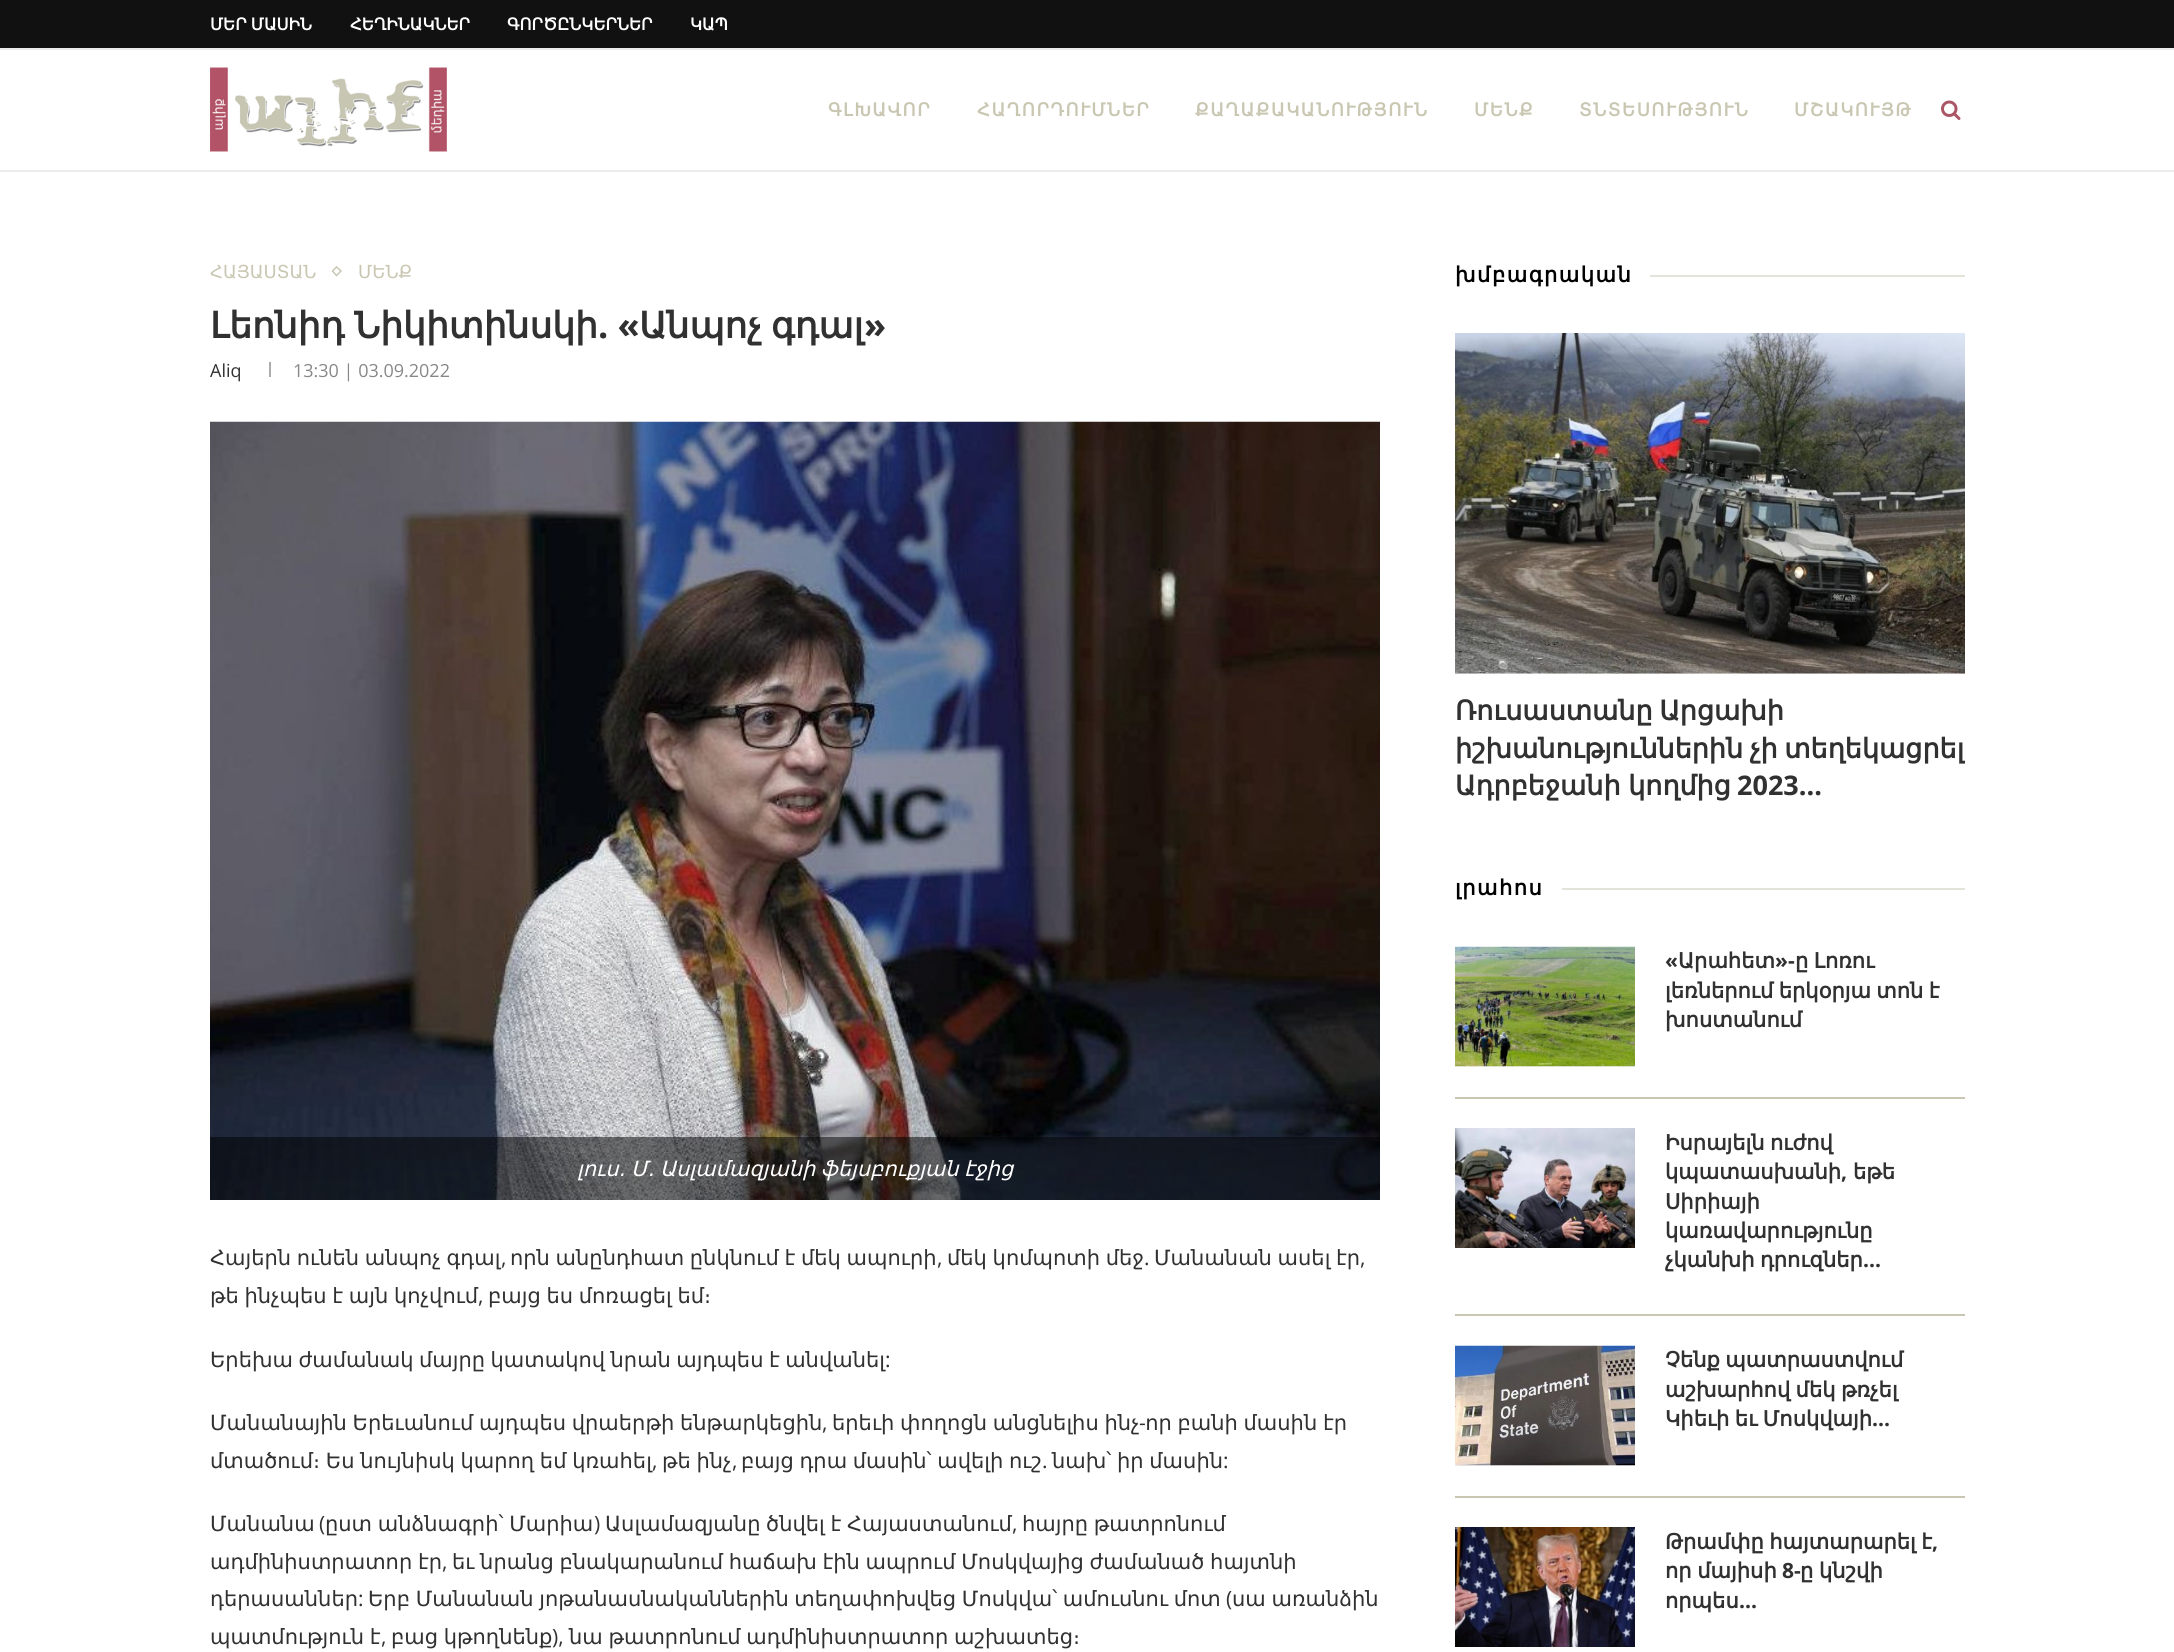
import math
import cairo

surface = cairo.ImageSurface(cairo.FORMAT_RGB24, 2174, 1652)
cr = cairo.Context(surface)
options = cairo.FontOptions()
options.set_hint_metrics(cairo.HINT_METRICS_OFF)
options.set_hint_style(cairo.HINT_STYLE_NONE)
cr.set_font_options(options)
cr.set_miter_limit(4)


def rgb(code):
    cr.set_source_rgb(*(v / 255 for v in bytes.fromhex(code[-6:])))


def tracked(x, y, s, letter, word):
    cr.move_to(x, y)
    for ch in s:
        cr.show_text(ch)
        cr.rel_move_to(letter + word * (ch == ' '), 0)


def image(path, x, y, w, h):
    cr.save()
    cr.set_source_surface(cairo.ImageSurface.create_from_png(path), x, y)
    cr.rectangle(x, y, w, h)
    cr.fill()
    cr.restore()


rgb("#ffffff")
cr.paint()
for x, y, w, h, color in [
    (0, 0, 2174, 48, "#111111"),
    (0, 48, 2174, 2, "#ececec"),
    (0, 170, 2174, 2, "#ececec"),
]:
    rgb(color)
    cr.rectangle(x, y, w, h)
    cr.fill()
image("img/1.png", 210, 67, 237, 85)
image("img/2.png", 1941, 100, 20, 20)
cr.new_path()
cr.move_to(336.5, 267)
cr.line_to(341, 271)
cr.line_to(336.5, 275.5)
cr.line_to(332.5, 271)
cr.close_path()
rgb("#c9c7b2")
cr.set_line_width(1.5)
cr.stroke()
rgb("#acacac")
cr.rectangle(269, 362, 2, 15)
cr.fill()
image("img/3.png", 210, 421, 1170, 779)
cr.set_source_rgba(0, 0, 0, 0.5)
cr.rectangle(210, 1137, 1170, 63)
cr.fill()
rgb("#e4e3d9")
cr.rectangle(1650, 275, 315, 2)
cr.fill()
rgb("#f5f5f5")
cr.rectangle(1455, 673, 510, 1)
cr.fill()
image("img/4.png", 1455, 333, 510, 341)
for x, y, w, h, color in [
    (1562, 888, 403, 2, "#e4e3d9"),
    (1455, 1097, 510, 2, "#c9c7b2"),
    (1455, 1066, 180, 1, "#f5f5f5"),
]:
    rgb(color)
    cr.rectangle(x, y, w, h)
    cr.fill()
image("img/5.png", 1455, 946, 180, 121)
rgb("#c9c7b2")
cr.rectangle(1455, 1314, 510, 2)
cr.fill()
image("img/6.png", 1455, 1128, 180, 120)
cr.rectangle(1455, 1496, 510, 2)
cr.fill()
rgb("#f5f5f5")
cr.rectangle(1455, 1465, 180, 1)
cr.fill()
image("img/7.png", 1455, 1345, 180, 121)
image("img/8.png", 1455, 1527, 180, 120)
cr.select_font_face("DejaVu Sans", cairo.FONT_SLANT_NORMAL, cairo.FONT_WEIGHT_BOLD)
cr.set_font_size(16.5)
rgb("#ffffff")
tracked(210, 30, "ՄԵՐ ՄԱՍԻՆ", 0, -1)
for x, y, s in [
    (350, 30, "ՀԵՂԻՆԱԿՆԵՐ"),
    (507, 30, "ԳՈՐԾԸՆԿԵՐՆԵՐ"),
    (690, 30, "ԿԱՊ"),
]:
    cr.move_to(x, y)
    cr.show_text(s)
cr.set_font_size(18)
rgb("#c9c7b2")
for x, y, s in [
    (828, 116, "ԳԼԽԱՎՈՐ"),
    (977, 116, "ՀԱՂՈՐԴՈՒՄՆԵՐ"),
    (1195, 116, "ՔԱՂԱՔԱԿԱՆՈՒԹՅՈՒՆ"),
    (1474, 116, "ՄԵՆՔ"),
    (1579, 116, "ՏՆՏԵՍՈՒԹՅՈՒՆ"),
    (1794, 116, "ՄՇԱԿՈՒՅԹ"),
]:
    tracked(x, y, s, 1.5, 0)
cr.select_font_face("DejaVu Sans")
cr.move_to(210, 278)
cr.show_text("ՀԱՅԱՍՏԱՆ")
cr.move_to(358, 278)
cr.show_text("ՄԵՆՔ")
cr.select_font_face("DejaVu Sans", cairo.FONT_SLANT_NORMAL, cairo.FONT_WEIGHT_BOLD)
cr.set_font_size(36)
rgb("#313131")
cr.move_to(210, 338)
cr.show_text("Լեոնիդ")
cr.move_to(354, 338)
cr.show_text("Նիկիտինսկի")
cr.select_font_face("Open Sans", cairo.FONT_SLANT_NORMAL, cairo.FONT_WEIGHT_BOLD)
cr.move_to(598, 338)
cr.show_text(". «")
cr.select_font_face("DejaVu Sans", cairo.FONT_SLANT_NORMAL, cairo.FONT_WEIGHT_BOLD)
cr.move_to(639, 338)
cr.show_text("Անպոչ")
cr.move_to(771, 338)
cr.show_text("գդալ")
cr.select_font_face("Open Sans", cairo.FONT_SLANT_NORMAL, cairo.FONT_WEIGHT_BOLD)
cr.move_to(864, 338)
cr.show_text("»")
cr.select_font_face("Open Sans")
cr.set_font_size(18)
cr.move_to(210, 377)
cr.show_text("Aliq")
rgb("#888888")
cr.move_to(293, 377)
cr.show_text("13:30 | 03.09.2022")
cr.select_font_face("DejaVu Sans", cairo.FONT_SLANT_ITALIC)
cr.set_font_size(21)
rgb("#ffffff")
tracked(577, 1176, "լուս․ Մ․ Ասլամազյանի ֆեյսբուքյան էջից", 0, -1.25)
cr.select_font_face("DejaVu Sans")
rgb("#313131")
tracked(210, 1265, "Հայերն ունեն անպոչ գդալ", 0, -1)
cr.select_font_face("Open Sans")
cr.move_to(501, 1265)
cr.show_text(",")
cr.select_font_face("DejaVu Sans")
tracked(510, 1265, "որն անընդհատ ընկնում է մեկ ապուրի", 0, -1)
cr.select_font_face("Open Sans")
cr.move_to(937, 1265)
cr.show_text(",")
cr.select_font_face("DejaVu Sans")
tracked(947, 1265, "մեկ կոմպոտի մեջ", 0, -1)
cr.select_font_face("Open Sans")
cr.move_to(1144, 1265)
cr.show_text(".")
cr.select_font_face("DejaVu Sans")
tracked(1154, 1265, "Մանանան ասել էր", 0, -1)
cr.select_font_face("Open Sans")
cr.move_to(1360, 1265)
cr.show_text(",")
cr.select_font_face("DejaVu Sans")
tracked(210, 1303, "թե ինչպես է այն կոչվում", 0, -1)
cr.select_font_face("Open Sans")
cr.move_to(478, 1303)
cr.show_text(",")
cr.select_font_face("DejaVu Sans")
tracked(488, 1303, "բայց ես մոռացել եմ։", 0, -1)
tracked(210, 1367, "Երեխա ժամանակ մայրը կատակով նրան այդպես է անվանել", 0, -1.25)
cr.select_font_face("Open Sans")
cr.move_to(885, 1367)
cr.show_text(":")
cr.select_font_face("DejaVu Sans")
tracked(210, 1430, "Մանանային Երեւանում այդպես վրաերթի ենթարկեցին", 0, -1)
tracked(832, 1430, "երեւի փողոցն անցնելիս ինչ որ բանի մասին էր", 0, -1)
cr.select_font_face("Open Sans")
cr.move_to(1139, 1430)
cr.show_text("-")
cr.move_to(822, 1430)
cr.show_text(",")
cr.select_font_face("DejaVu Sans")
tracked(210, 1468, "մտածում։ Ես նույնիսկ կարող եմ կռահել", 0, -1)
cr.select_font_face("Open Sans")
cr.move_to(652, 1468)
cr.show_text(",")
cr.select_font_face("DejaVu Sans")
tracked(662, 1468, "թե ինչ", 0, -1)
cr.select_font_face("Open Sans")
cr.move_to(732, 1468)
cr.show_text(",")
cr.select_font_face("DejaVu Sans")
tracked(741, 1468, "բայց դրա մասին՝ ավելի ուշ", 0, -1)
cr.select_font_face("Open Sans")
cr.move_to(1042, 1468)
cr.show_text(".")
cr.select_font_face("DejaVu Sans")
tracked(1052, 1468, "նախ՝ իր մասին", 0, -1)
cr.select_font_face("Open Sans")
cr.move_to(1223, 1468)
cr.show_text(":")
cr.select_font_face("DejaVu Sans")
cr.move_to(210, 1531)
cr.show_text("Մանանա")
cr.select_font_face("Open Sans")
cr.move_to(319, 1531)
cr.show_text("(")
cr.select_font_face("DejaVu Sans")
tracked(325, 1531, "ըստ անձնագրի՝ Մարիա", 0, -1)
cr.select_font_face("Open Sans")
cr.move_to(594, 1531)
cr.show_text(")")
cr.select_font_face("DejaVu Sans")
tracked(605, 1531, "Ասլամազյանը ծնվել է Հայաստանում", 0, -1)
cr.select_font_face("Open Sans")
cr.move_to(1012, 1531)
cr.show_text(",")
cr.select_font_face("DejaVu Sans")
tracked(1022, 1531, "հայրը թատրոնում", 0, -1)
tracked(210, 1569, "ադմինիստրատոր էր", 0, -1)
cr.select_font_face("Open Sans")
cr.move_to(442, 1569)
cr.show_text(",")
cr.select_font_face("DejaVu Sans")
tracked(452, 1569, "եւ նրանց բնակարանում հաճախ էին ապրում Մոսկվայից ժամանած հայտնի", 0, -1)
cr.move_to(210, 1606)
cr.show_text("դերասաններ")
cr.select_font_face("Open Sans")
cr.move_to(358, 1606)
cr.show_text(":")
cr.select_font_face("DejaVu Sans")
tracked(368, 1606, "Երբ Մանանան յոթանասնականներին տեղափոխվեց Մոսկվա՝ ամուսնու մոտ", 0, -1)
cr.select_font_face("Open Sans")
cr.move_to(1226, 1606)
cr.show_text("(")
cr.select_font_face("DejaVu Sans")
tracked(1232, 1606, "սա առանձին", 0, -1)
tracked(210, 1644, "պատմություն է", 0, -1)
cr.select_font_face("Open Sans")
cr.move_to(381, 1644)
cr.show_text(",")
cr.select_font_face("DejaVu Sans")
tracked(391, 1644, "բաց կթողնենք", 0, -1)
cr.select_font_face("Open Sans")
cr.move_to(552, 1644)
cr.show_text("),")
cr.select_font_face("DejaVu Sans")
tracked(569, 1644, "նա թատրոնում ադմինիստրատոր աշխատեց։", 0, -1)
cr.select_font_face("DejaVu Sans", cairo.FONT_SLANT_NORMAL, cairo.FONT_WEIGHT_BOLD)
rgb("#000000")
tracked(1455, 282, "խմբագրական", 1.5, 0)
cr.set_font_size(27)
rgb("#313131")
tracked(1455, 720, "Ռուսաստանը Արցախի", 0, -2)
cr.save()
cr.rectangle(1455, 692, 510, 121)
cr.clip()
tracked(1455, 758, "իշխանություններին չի տեղեկացրել", 0, -2)
cr.restore()
tracked(1455, 795, "Ադրբեջանի կողմից", 0, -1)
cr.select_font_face("Open Sans", cairo.FONT_SLANT_NORMAL, cairo.FONT_WEIGHT_BOLD)
cr.move_to(1737, 795)
cr.show_text("2023...")
cr.select_font_face("DejaVu Sans", cairo.FONT_SLANT_NORMAL, cairo.FONT_WEIGHT_BOLD)
cr.set_font_size(21)
rgb("#000000")
tracked(1455, 895, "լրահոս", 1.5, 0)
cr.select_font_face("Open Sans", cairo.FONT_SLANT_NORMAL, cairo.FONT_WEIGHT_BOLD)
rgb("#313131")
cr.move_to(1665, 968)
cr.show_text("«")
cr.select_font_face("DejaVu Sans", cairo.FONT_SLANT_NORMAL, cairo.FONT_WEIGHT_BOLD)
cr.move_to(1678, 968)
cr.show_text("Արահետ")
cr.select_font_face("Open Sans", cairo.FONT_SLANT_NORMAL, cairo.FONT_WEIGHT_BOLD)
cr.move_to(1775, 968)
cr.show_text("»-")
cr.select_font_face("DejaVu Sans", cairo.FONT_SLANT_NORMAL, cairo.FONT_WEIGHT_BOLD)
tracked(1795, 968, "ը Լոռու", 0, -1.25)
tracked(1665, 998, "լեռներում երկօրյա տոն է", 0, -1.25)
cr.move_to(1665, 1027)
cr.show_text("խոստանում")
tracked(1665, 1150, "Իսրայելն ուժով", 0, -1.25)
cr.move_to(1665, 1179)
cr.show_text("կպատասխանի")
cr.select_font_face("Open Sans", cairo.FONT_SLANT_NORMAL, cairo.FONT_WEIGHT_BOLD)
cr.move_to(1841, 1179)
cr.show_text(",")
cr.select_font_face("DejaVu Sans", cairo.FONT_SLANT_NORMAL, cairo.FONT_WEIGHT_BOLD)
for x, y, s in [
    (1853, 1179, "եթե"),
    (1665, 1209, "Սիրիայի"),
    (1665, 1238, "կառավարությունը"),
]:
    cr.move_to(x, y)
    cr.show_text(s)
tracked(1665, 1267, "չկանխի դրուզներ", 0, -1.25)
cr.select_font_face("Open Sans", cairo.FONT_SLANT_NORMAL, cairo.FONT_WEIGHT_BOLD)
cr.move_to(1863, 1267)
cr.show_text("...")
cr.select_font_face("DejaVu Sans", cairo.FONT_SLANT_NORMAL, cairo.FONT_WEIGHT_BOLD)
for x, y, s in [
    (1665, 1367, "Չենք պատրաստվում"),
    (1665, 1397, "աշխարհով մեկ թռչել"),
    (1665, 1426, "Կիեւի եւ Մոսկվայի"),
]:
    tracked(x, y, s, 0, -1.25)
cr.select_font_face("Open Sans", cairo.FONT_SLANT_NORMAL, cairo.FONT_WEIGHT_BOLD)
cr.move_to(1872, 1426)
cr.show_text("...")
cr.select_font_face("DejaVu Sans", cairo.FONT_SLANT_NORMAL, cairo.FONT_WEIGHT_BOLD)
tracked(1665, 1549, "Թրամփը հայտարարել է", 0, -1.25)
cr.select_font_face("Open Sans", cairo.FONT_SLANT_NORMAL, cairo.FONT_WEIGHT_BOLD)
cr.move_to(1932, 1549)
cr.show_text(",")
cr.select_font_face("DejaVu Sans", cairo.FONT_SLANT_NORMAL, cairo.FONT_WEIGHT_BOLD)
tracked(1665, 1578, "որ մայիսի", 0, -1)
cr.select_font_face("Open Sans", cairo.FONT_SLANT_NORMAL, cairo.FONT_WEIGHT_BOLD)
cr.move_to(1782, 1578)
cr.show_text("8-")
cr.select_font_face("DejaVu Sans", cairo.FONT_SLANT_NORMAL, cairo.FONT_WEIGHT_BOLD)
tracked(1800, 1578, "ը կնշվի", 0, -1)
cr.move_to(1665, 1608)
cr.show_text("որպես")
cr.select_font_face("Open Sans", cairo.FONT_SLANT_NORMAL, cairo.FONT_WEIGHT_BOLD)
cr.move_to(1739, 1608)
cr.show_text("...")
surface.write_to_png("page.png")
